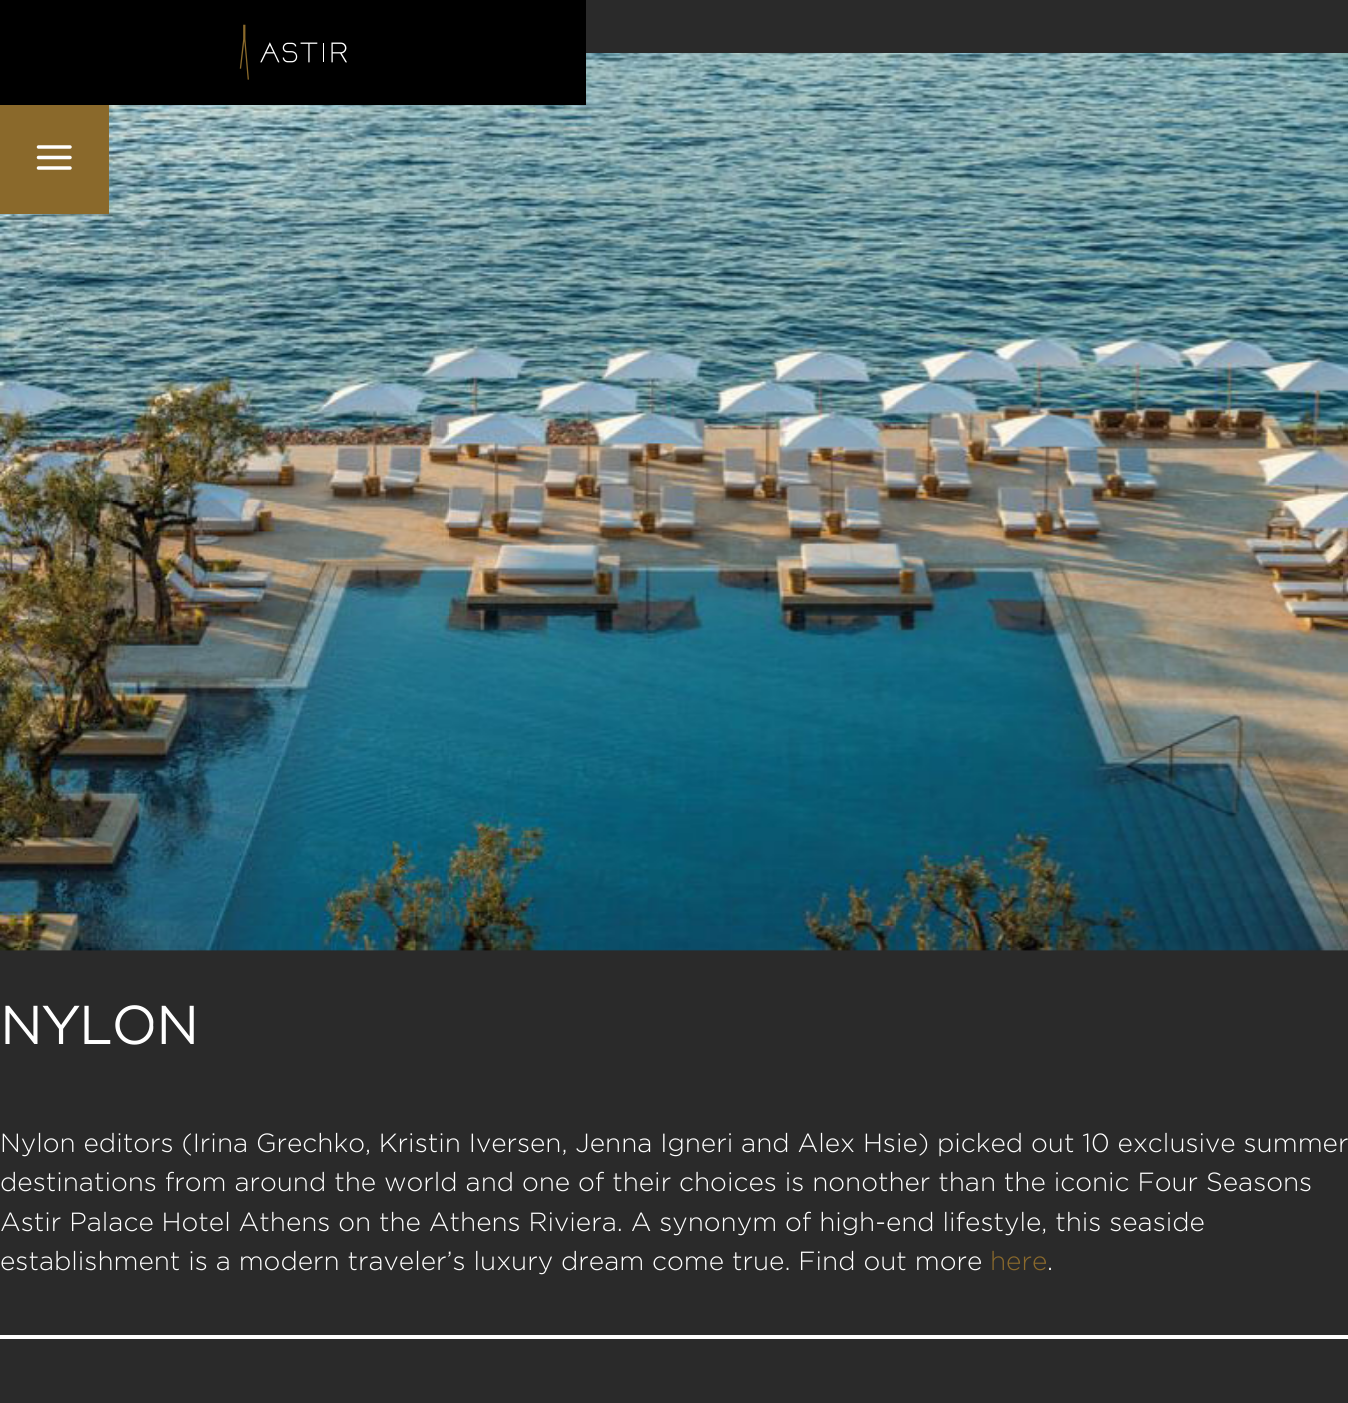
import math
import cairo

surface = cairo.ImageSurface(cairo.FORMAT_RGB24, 1348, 1403)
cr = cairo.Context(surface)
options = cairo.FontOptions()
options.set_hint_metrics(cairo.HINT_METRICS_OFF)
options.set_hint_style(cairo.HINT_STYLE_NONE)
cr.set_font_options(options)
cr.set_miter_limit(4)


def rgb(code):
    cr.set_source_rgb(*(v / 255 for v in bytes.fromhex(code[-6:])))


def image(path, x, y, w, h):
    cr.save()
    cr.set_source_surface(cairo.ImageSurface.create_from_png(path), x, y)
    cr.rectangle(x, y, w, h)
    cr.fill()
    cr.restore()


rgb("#2a2a2a")
cr.paint()
image("img/3.png", 0, 53, 1348, 898)
rgb("#000000")
cr.rectangle(0, 0, 586, 105)
cr.fill()
image("img/1.png", 239, 24, 108, 56)
rgb("#8a692b")
cr.rectangle(0, 105, 109, 109)
cr.fill()
image("img/2.png", 36, 145, 36, 25)
rgb("#ffffff")
cr.rectangle(0, 1335, 1348, 4)
cr.fill()
cr.select_font_face("Gotham", cairo.FONT_SLANT_NORMAL, cairo.FONT_WEIGHT_BOLD)
cr.set_font_size(52.5)
cr.move_to(0, 1044)
cr.show_text("NYLON")
cr.select_font_face("Gotham Light")
cr.set_font_size(26.25)
for x, y, s in [
    (0, 1152, "Nylon editors (Irina Grechko, Kristin Iversen, Jenna Igneri and Alex Hsie) picked out 10 exclusive summer"),
    (0, 1191, "destinations from around the world and one of their choices is nonother than the iconic Four Seasons"),
    (0, 1231, "Astir Palace Hotel Athens on the Athens Riviera. A synonym of high-end lifestyle, this seaside"),
    (0, 1270, "establishment is a modern traveler’s luxury dream come true. Find out more"),
]:
    cr.move_to(x, y)
    cr.show_text(s)
rgb("#8a692b")
cr.move_to(990, 1270)
cr.show_text("here")
rgb("#ffffff")
cr.move_to(1047, 1270)
cr.show_text(".")
surface.write_to_png("page.png")
